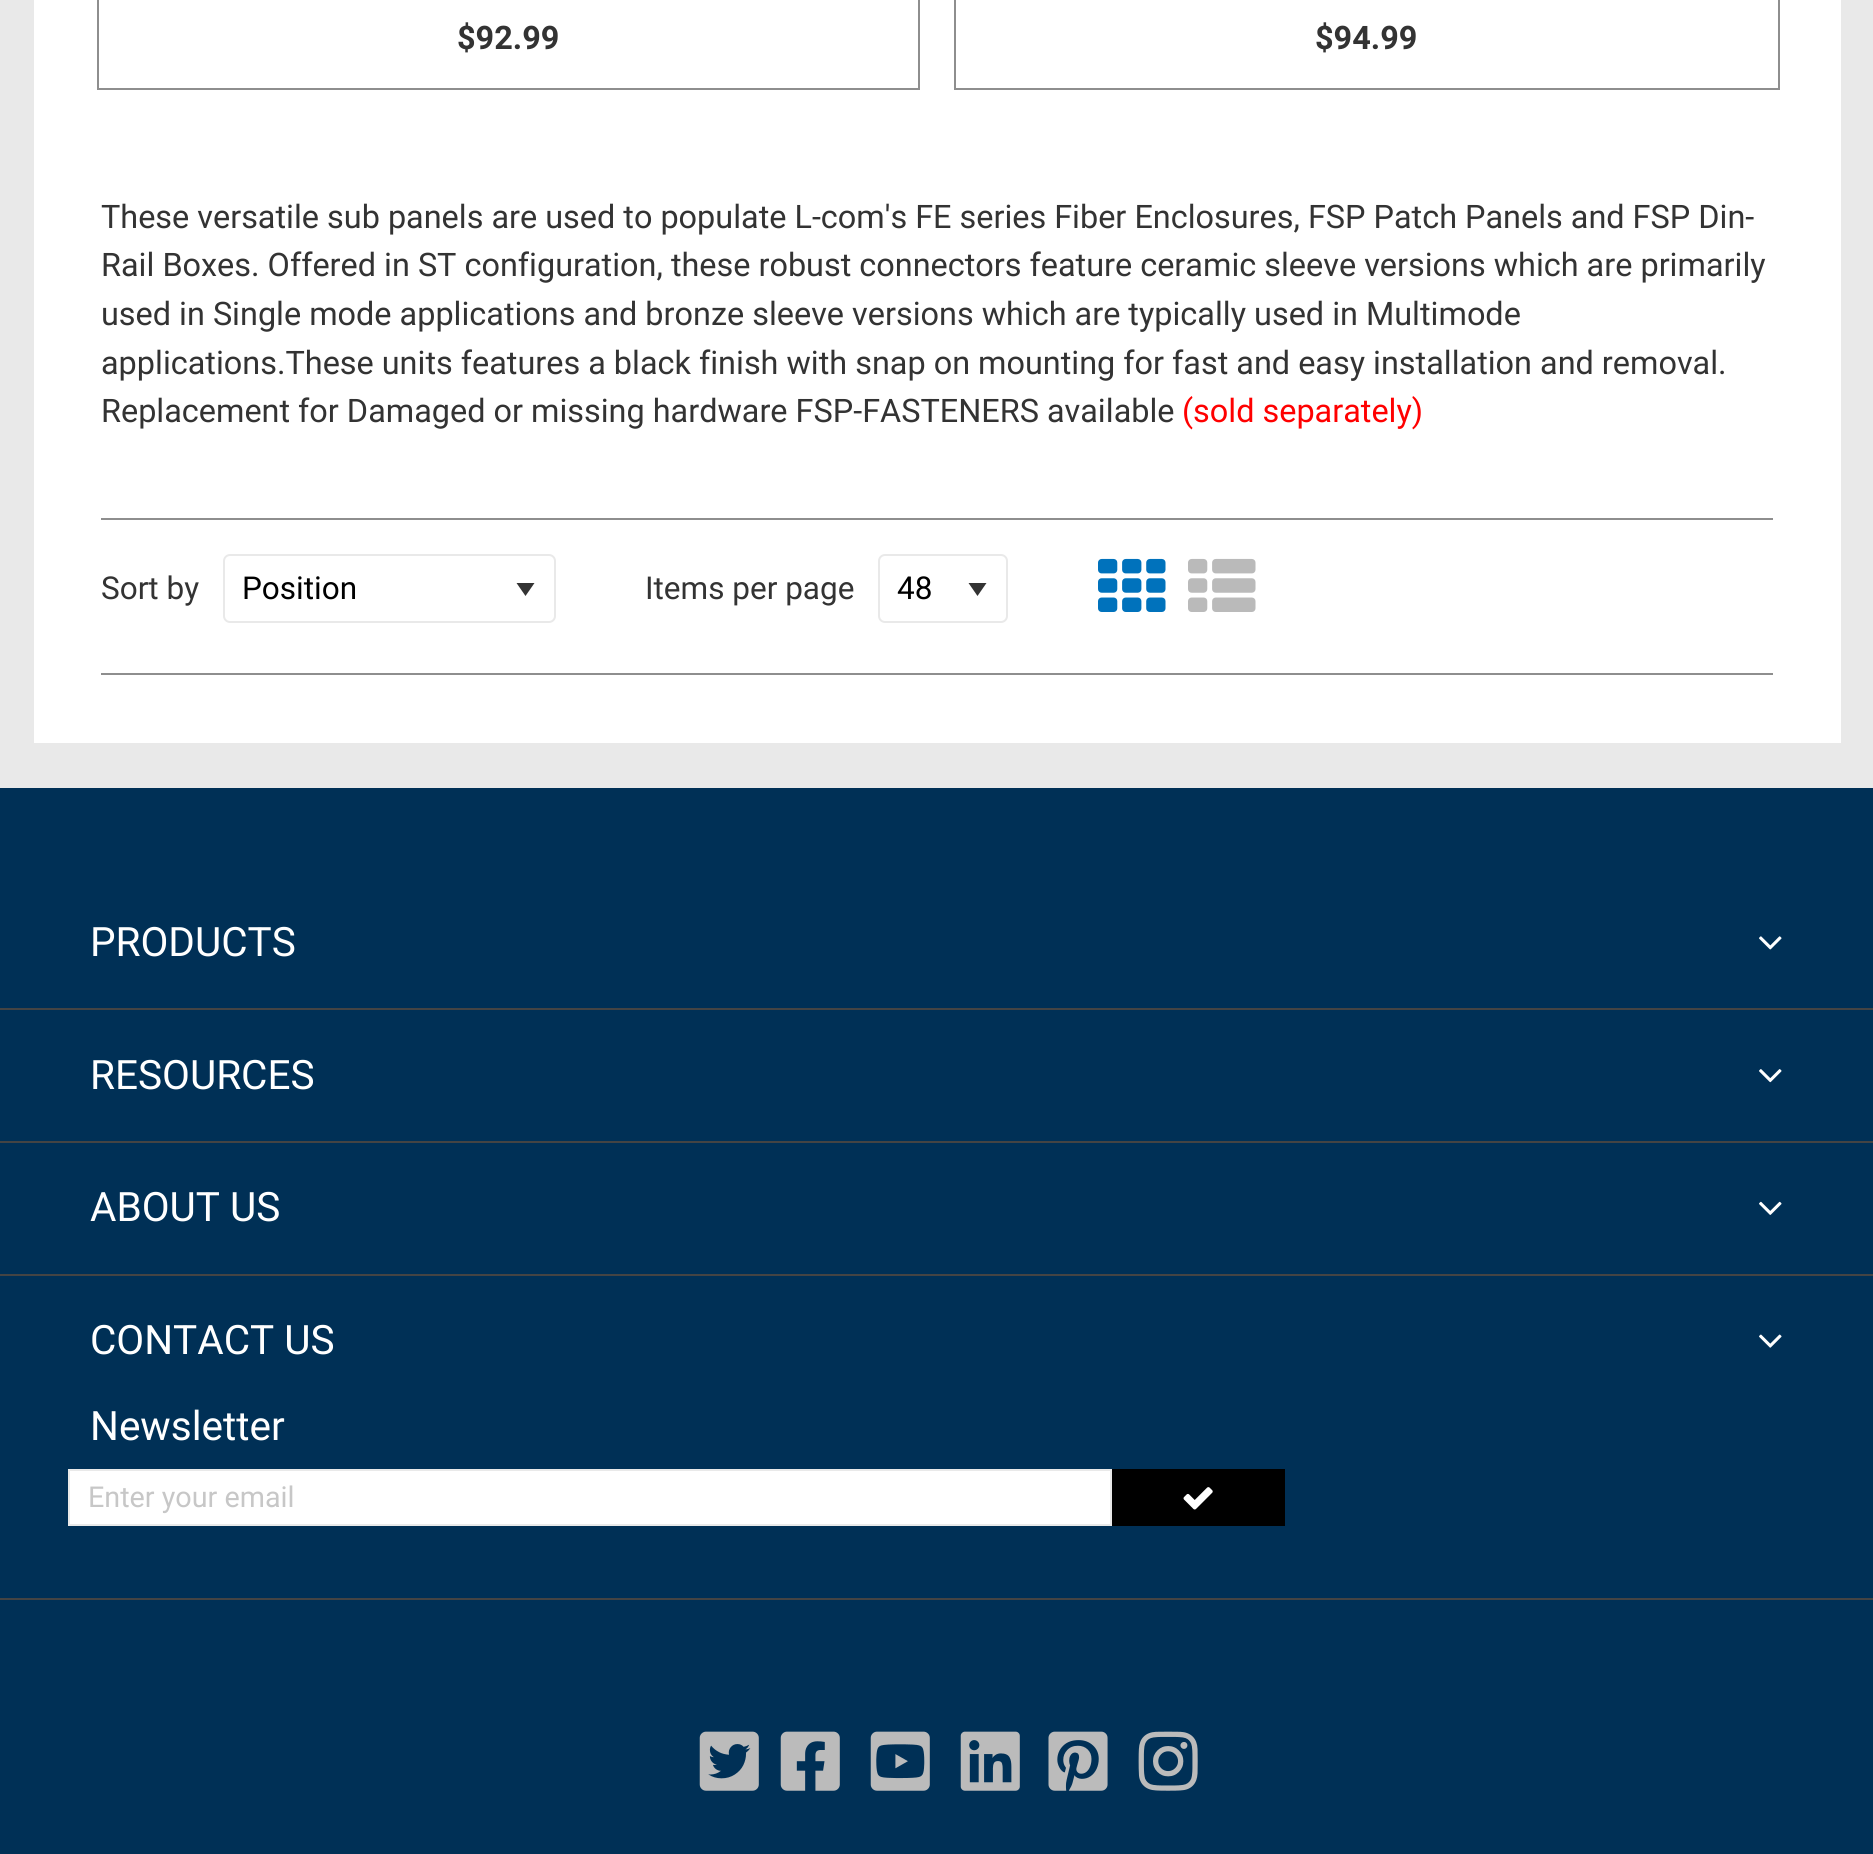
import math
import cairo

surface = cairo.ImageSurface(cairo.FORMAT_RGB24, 1873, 1854)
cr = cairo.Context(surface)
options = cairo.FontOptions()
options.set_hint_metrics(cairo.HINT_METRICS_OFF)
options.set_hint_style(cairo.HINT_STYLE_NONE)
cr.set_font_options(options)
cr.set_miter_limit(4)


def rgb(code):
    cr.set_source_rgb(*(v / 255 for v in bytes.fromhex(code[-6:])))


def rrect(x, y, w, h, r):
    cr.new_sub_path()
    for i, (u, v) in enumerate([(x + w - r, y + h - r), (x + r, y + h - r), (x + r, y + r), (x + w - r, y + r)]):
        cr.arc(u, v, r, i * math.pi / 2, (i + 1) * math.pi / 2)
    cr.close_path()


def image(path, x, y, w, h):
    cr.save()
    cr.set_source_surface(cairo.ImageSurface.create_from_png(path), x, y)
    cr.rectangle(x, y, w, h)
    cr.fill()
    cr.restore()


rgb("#e9e9e9")
cr.paint()
rgb("#ffffff")
cr.rectangle(34, 0, 1807, 743)
cr.fill()
cr.rectangle(98, -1, 821, 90)
rgb("#8e8e8e")
cr.stroke()
cr.rectangle(955, -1, 824, 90)
cr.stroke()
cr.rectangle(101, 518, 1672, 2)
cr.fill()
cr.rectangle(101, 673, 1672, 2)
cr.fill()
rgb("#333333")
cr.new_path()
cr.move_to(516.5, 583)
cr.line_to(534.5, 583)
cr.line_to(525.5, 596)
cr.close_path()
cr.fill()
rrect(224, 555, 331, 67, 6)
rgb("#e9e9e9")
cr.stroke()
rgb("#333333")
cr.new_path()
cr.move_to(968.5, 583)
cr.line_to(986.5, 583)
cr.line_to(977.5, 596)
cr.close_path()
cr.fill()
rrect(879, 555, 128, 67, 6)
rgb("#e9e9e9")
cr.stroke()
image("img/1.png", 1098, 558, 68, 54)
image("img/2.png", 1188, 558, 68, 54)
rgb("#003056")
cr.rectangle(0, 788, 1873, 1066)
cr.fill()
rgb("#444444")
cr.rectangle(0, 1008, 1873, 2)
cr.fill()
image("img/3.png", 1759, 936, 23, 14)
cr.rectangle(0, 1141, 1873, 2)
cr.fill()
image("img/4.png", 1759, 1069, 23, 14)
cr.rectangle(0, 1274, 1873, 2)
cr.fill()
image("img/5.png", 1759, 1201, 23, 14)
cr.rectangle(0, 1598, 1873, 2)
cr.fill()
image("img/6.png", 1759, 1334, 23, 14)
rgb("#ffffff")
cr.rectangle(69, 1470, 1042, 55)
cr.fill_preserve()
rgb("#e9e9e9")
cr.stroke()
rgb("#000000")
cr.rectangle(1112, 1469, 173, 57)
cr.fill()
image("img/7.png", 1183, 1487, 30, 23)
image("img/8.png", 699, 1731, 60, 60)
image("img/9.png", 780, 1731, 60, 60)
image("img/10.png", 870, 1731, 60, 60)
image("img/11.png", 960, 1731, 60, 60)
image("img/12.png", 1048, 1731, 60, 60)
image("img/13.png", 1138, 1731, 60, 60)
cr.select_font_face("Roboto", cairo.FONT_SLANT_NORMAL, cairo.FONT_WEIGHT_BOLD)
cr.set_font_size(32.4)
rgb("#333333")
cr.move_to(457, 49)
cr.show_text("$92.99")
cr.move_to(1315, 49)
cr.show_text("$94.99")
cr.select_font_face("Roboto")
for x, y, s in [
    (101, 228, "These versatile sub panels are used to populate L-com's FE series Fiber Enclosures, FSP Patch Panels and FSP Din-"),
    (101, 276, "Rail Boxes. Offered in ST configuration, these robust connectors feature ceramic sleeve versions which are primarily"),
    (101, 325, "used in Single mode applications and bronze sleeve versions which are typically used in Multimode"),
    (101, 374, "applications.These units features a black finish with snap on mounting for fast and easy installation and removal."),
    (101, 422, "Replacement for Damaged or missing hardware FSP-FASTENERS available"),
]:
    cr.move_to(x, y)
    cr.show_text(s)
rgb("#ff0000")
cr.move_to(1182, 422)
cr.show_text("(sold separately)")
cr.set_font_size(31.5)
rgb("#333333")
cr.move_to(101, 599)
cr.show_text("Sort by")
rgb("#000000")
cr.move_to(242, 599)
cr.show_text("Position")
rgb("#333333")
cr.move_to(645, 599)
cr.show_text("Items per page")
rgb("#000000")
cr.move_to(897, 599)
cr.show_text("48")
cr.set_font_size(40.5)
rgb("#ffffff")
for x, y, s in [
    (90, 956, "PRODUCTS"),
    (90, 1089, "RESOURCES"),
    (90, 1221, "ABOUT US"),
    (90, 1354, "CONTACT US"),
    (90, 1440, "Newsletter"),
]:
    cr.move_to(x, y)
    cr.show_text(s)
cr.set_font_size(28.75)
rgb("#c7c7c7")
cr.move_to(88, 1507)
cr.show_text("Enter your email")
surface.write_to_png("page.png")
